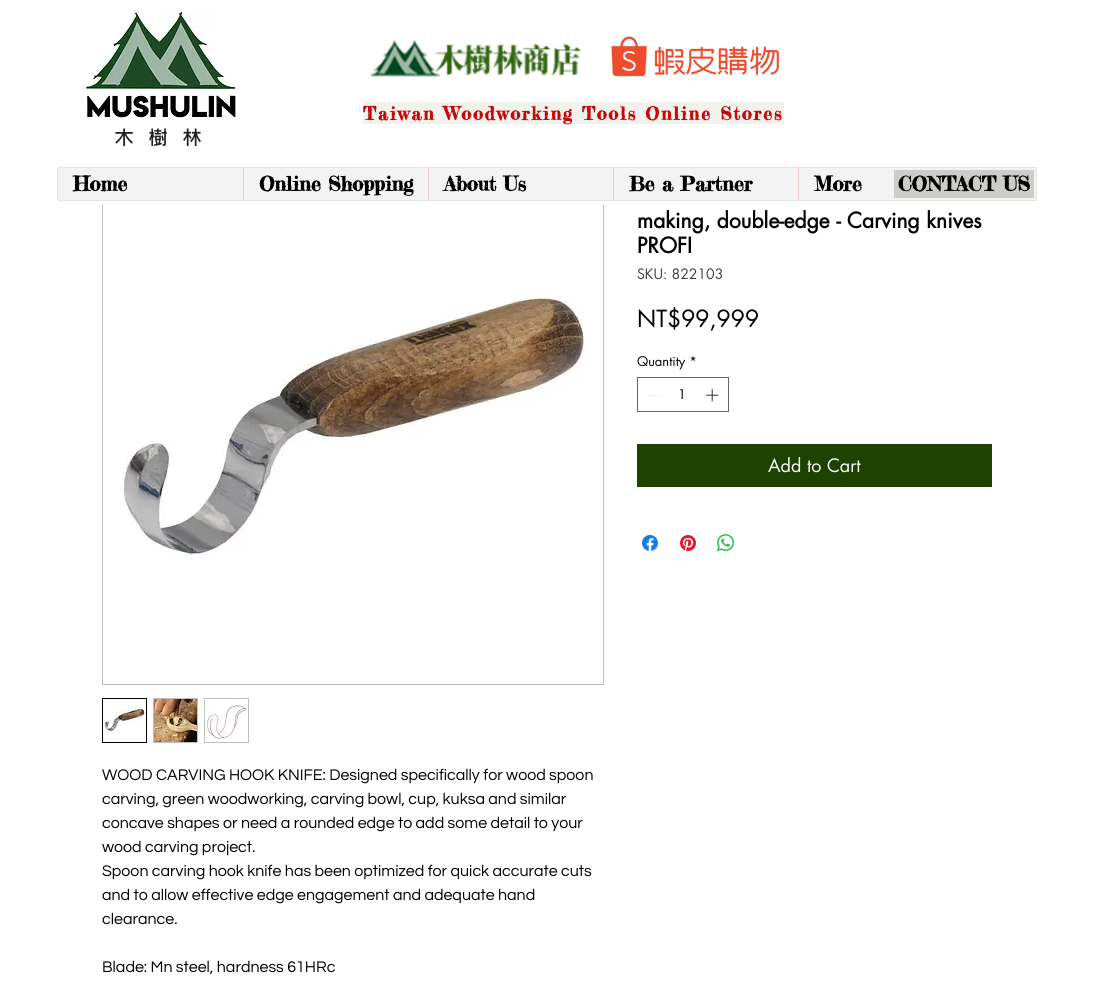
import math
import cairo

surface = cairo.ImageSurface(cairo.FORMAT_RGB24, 1093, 990)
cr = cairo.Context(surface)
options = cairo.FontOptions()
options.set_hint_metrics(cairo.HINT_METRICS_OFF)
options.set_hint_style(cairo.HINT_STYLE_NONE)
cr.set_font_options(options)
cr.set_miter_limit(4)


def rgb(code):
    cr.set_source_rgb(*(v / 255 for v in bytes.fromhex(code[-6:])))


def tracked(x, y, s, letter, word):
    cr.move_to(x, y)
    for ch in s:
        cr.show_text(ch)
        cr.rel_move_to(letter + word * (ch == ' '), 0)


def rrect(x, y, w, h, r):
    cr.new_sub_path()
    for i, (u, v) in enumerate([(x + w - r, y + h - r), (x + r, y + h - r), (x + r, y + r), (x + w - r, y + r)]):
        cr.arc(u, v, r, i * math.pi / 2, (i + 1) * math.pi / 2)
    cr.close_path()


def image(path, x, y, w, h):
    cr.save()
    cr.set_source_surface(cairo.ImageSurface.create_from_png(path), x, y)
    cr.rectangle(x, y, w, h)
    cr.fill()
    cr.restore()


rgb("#ffffff")
cr.paint()
image("img/1.png", 81, 10, 157, 81)
image("img/2.png", 84, 10, 153, 81)
image("img/3.png", 370, 40, 211, 37)
image("img/4.png", 611, 36, 168, 41)
image("img/5.png", 87, 94, 149, 24)
rgb("#f2f2ed")
cr.rectangle(363, 102, 421, 22)
cr.fill()
cr.rectangle(102.5, 183.5, 501, 501)
rgb("#bfbfbf")
cr.set_line_width(1)
cr.stroke()
rgb("#ffffff")
cr.rectangle(102, 183, 502, 22)
cr.fill()
rgb("#f3f3f3")
rrect(57.5, 167.5, 979, 33, 1.5)
cr.fill_preserve()
rgb("#e1e6de")
cr.stroke()
for x, y, w, h, color in [
    (243, 168, 1, 32, "#eccdcd"),
    (428, 168, 1, 32, "#eccdcd"),
    (613, 168, 1, 32, "#eccdcd"),
    (798, 168, 1, 32, "#eccdcd"),
]:
    rgb(color)
    cr.rectangle(x, y, w, h)
    cr.fill()
rgb("#cacdc8")
rrect(894, 170, 140, 28, 1)
cr.fill()
cr.rectangle(637.5, 377.5, 91, 34)
rgb("#666666")
cr.stroke()
rgb("#e3e3e3")
cr.set_fill_rule(cairo.FILL_RULE_EVEN_ODD)
cr.new_path()
cr.move_to(660, 395)
cr.line_to(660, 395.5)
cr.line_to(648, 395.5)
cr.line_to(648, 395)
cr.close_path()
cr.fill()
image("img/6.png", 706, 389, 13, 13)
rgb("#1d4202")
cr.rectangle(637, 444, 355, 43)
cr.fill()
image("img/7.png", 642, 535, 16, 16)
image("img/8.png", 680, 535, 16, 16)
image("img/9.png", 717, 534, 17, 17)
image("img/10.png", 123, 296, 463, 260)
cr.rectangle(102.5, 698.5, 44, 44)
rgb("#000000")
cr.stroke()
image("img/11.png", 103, 699, 43, 43)
rgb("#bfbfbf")
cr.rectangle(153, 698, 45, 45)
cr.fill()
image("img/12.png", 154, 699, 43, 43)
cr.rectangle(204, 698, 45, 45)
cr.fill()
image("img/13.png", 205, 699, 43, 43)
cr.select_font_face("Fredericka the Great", cairo.FONT_SLANT_NORMAL, cairo.FONT_WEIGHT_BOLD)
cr.set_font_size(18)
rgb("#c70808")
tracked(363, 120, "Taiwan Woodworking Tools Online Stores", 1.8, 0)
cr.select_font_face("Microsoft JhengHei", cairo.FONT_SLANT_NORMAL, cairo.FONT_WEIGHT_BOLD)
cr.set_font_size(20)
rgb("#212121")
tracked(114, 145, "木樹林", 14, 0)
cr.select_font_face("Fredericka the Great", cairo.FONT_SLANT_NORMAL, cairo.FONT_WEIGHT_BOLD)
rgb("#000000")
for x, y, s in [
    (73, 191, "Home"),
    (259, 191, "Online Shopping"),
    (444, 191, "About Us"),
    (629, 191, "Be a Partner"),
    (814, 191, "More"),
    (898, 191, "CONTACT US"),
]:
    cr.move_to(x, y)
    cr.show_text(s)
cr.select_font_face("futura", cairo.FONT_SLANT_NORMAL, cairo.FONT_WEIGHT_BOLD)
cr.set_font_size(21)
cr.move_to(637, 228)
cr.show_text("making, double-edge - Carving knives")
cr.move_to(637, 253)
cr.show_text("PROFI")
cr.select_font_face("futura")
cr.set_font_size(14)
rgb("#404040")
cr.move_to(637, 279)
cr.show_text("SKU: 822103")
cr.set_font_size(23)
rgb("#000000")
cr.move_to(637, 327)
cr.show_text("NT$99,999")
cr.set_font_size(13)
cr.move_to(637, 366)
cr.show_text("Quantity *")
cr.move_to(678, 399)
cr.show_text("1")
cr.set_font_size(18)
rgb("#ffffff")
cr.move_to(768, 472)
cr.show_text("Add to Cart")
cr.select_font_face("Questrial")
cr.set_font_size(16)
rgb("#000000")
for x, y, s in [
    (102, 780, "WOOD CARVING HOOK KNIFE: Designed specifically for wood spoon"),
    (102, 804, "carving, green woodworking, carving bowl, cup, kuksa and similar"),
    (102, 828, "concave shapes or need a rounded edge to add some detail to your"),
    (102, 852, "wood carving project."),
    (102, 876, "Spoon carving hook knife has been optimized for quick accurate cuts"),
    (102, 900, "and to allow effective edge engagement and adequate hand"),
    (102, 924, "clearance."),
    (102, 972, "Blade: Mn steel, hardness 61HRc"),
]:
    cr.move_to(x, y)
    cr.show_text(s)
surface.write_to_png("page.png")
